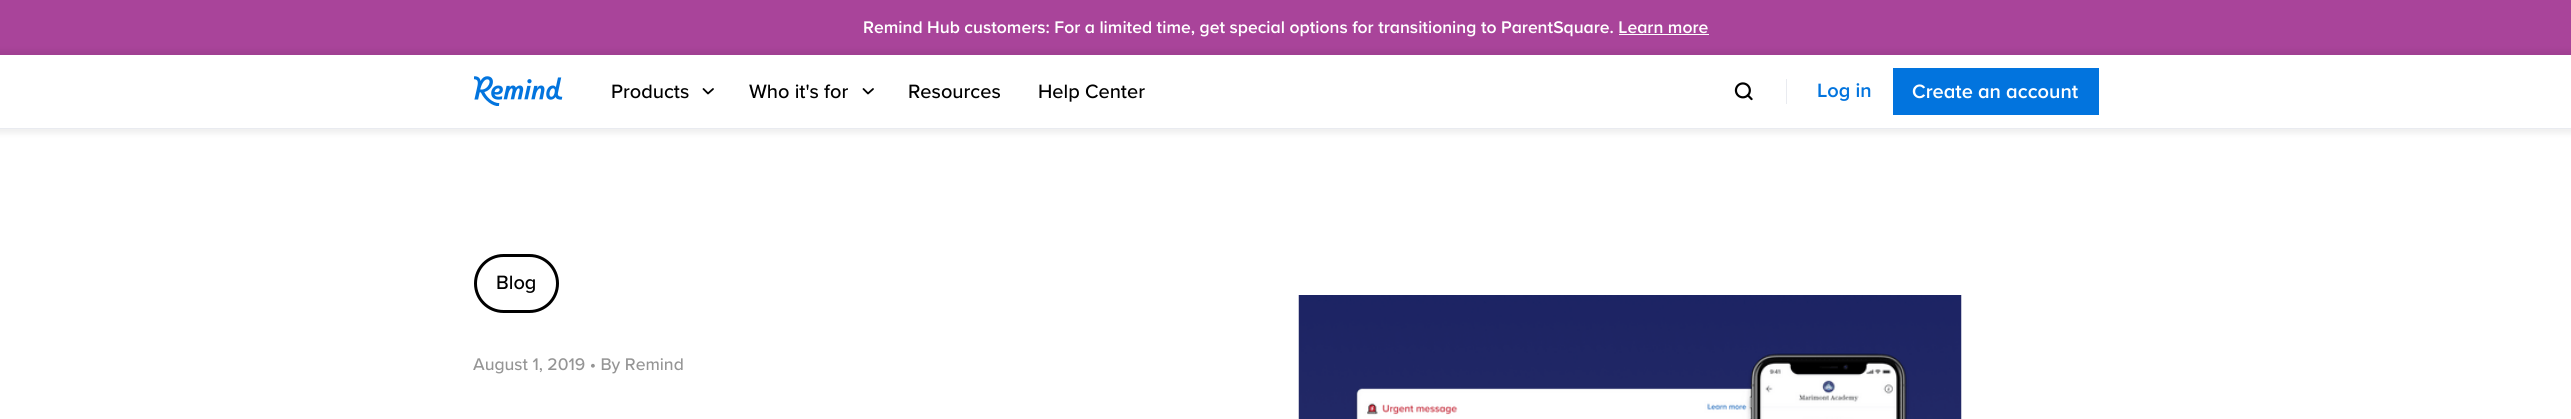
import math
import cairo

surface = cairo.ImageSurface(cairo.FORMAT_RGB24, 2571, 419)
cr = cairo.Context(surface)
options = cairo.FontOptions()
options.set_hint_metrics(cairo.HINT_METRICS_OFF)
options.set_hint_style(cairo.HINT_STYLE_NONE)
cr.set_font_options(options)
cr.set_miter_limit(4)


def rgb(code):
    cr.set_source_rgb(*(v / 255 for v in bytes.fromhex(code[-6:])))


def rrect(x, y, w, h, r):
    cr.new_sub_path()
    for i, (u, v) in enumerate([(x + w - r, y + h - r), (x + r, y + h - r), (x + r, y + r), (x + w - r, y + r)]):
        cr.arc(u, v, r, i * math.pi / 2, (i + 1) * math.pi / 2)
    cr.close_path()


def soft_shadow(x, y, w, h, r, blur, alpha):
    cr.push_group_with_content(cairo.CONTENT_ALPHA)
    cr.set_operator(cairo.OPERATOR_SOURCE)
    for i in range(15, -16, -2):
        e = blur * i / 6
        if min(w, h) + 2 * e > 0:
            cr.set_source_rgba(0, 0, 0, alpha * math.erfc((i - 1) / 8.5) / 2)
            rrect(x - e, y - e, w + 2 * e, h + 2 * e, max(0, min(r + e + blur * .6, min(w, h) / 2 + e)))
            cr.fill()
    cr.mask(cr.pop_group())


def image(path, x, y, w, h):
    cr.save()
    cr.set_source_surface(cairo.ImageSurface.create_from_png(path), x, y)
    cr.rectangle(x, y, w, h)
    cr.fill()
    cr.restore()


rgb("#a9449a")
cr.paint()
rgb("#ffffff")
cr.rectangle(1619, 34, 90, 1)
cr.fill()
cr.rectangle(0, 129, 2571, 290)
cr.fill()
rgb("#000000")
soft_shadow(-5, 50, 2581, 84, 0, 2.5, 0.06)
rgb("#ffffff")
cr.rectangle(0, 55, 2571, 73)
cr.fill()
rgb("#e9ebf0")
cr.rectangle(0, 128, 2571, 1)
cr.fill()
image("img/1.png", 474, 76, 89, 30)
cr.new_path()
cr.move_to(703.5, 89)
cr.line_to(708, 93.5)
cr.line_to(713, 89)
rgb("#000000")
cr.set_line_width(1.8)
cr.set_line_cap(cairo.LINE_CAP_ROUND)
cr.set_line_join(cairo.LINE_JOIN_ROUND)
cr.stroke()
cr.new_path()
cr.move_to(863.5, 89)
cr.line_to(868, 93.5)
cr.line_to(873, 89)
cr.stroke()
rgb("#e9ebf0")
cr.rectangle(1786, 79, 1, 25)
cr.fill()
image("img/2.png", 1734, 82, 19, 19)
rgb("#0274de")
cr.rectangle(1893, 68, 206, 47)
cr.fill()
rrect(475.5, 255.5, 82, 56, 28)
rgb("#000000")
cr.set_line_width(3)
cr.set_line_cap(cairo.LINE_CAP_BUTT)
cr.set_line_join(cairo.LINE_JOIN_MITER)
cr.stroke()
image("img/3.png", 1298, 295, 664, 124)
cr.select_font_face("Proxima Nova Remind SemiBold")
cr.set_font_size(17.5)
rgb("#ffffff")
cr.move_to(863, 33)
cr.show_text("Remind Hub customers: For a limited time, get special options for transitioning to ParentSquare. Learn more")
cr.select_font_face("Proxima Nova Remind Medium")
cr.set_font_size(20)
rgb("#000000")
for x, y, s in [
    (611, 98, "Products"),
    (749, 98, "Who it's for"),
    (908, 98, "Resources"),
    (1038, 98, "Help Center"),
]:
    cr.move_to(x, y)
    cr.show_text(s)
cr.select_font_face("Proxima Nova Remind SemiBold")
rgb("#0274de")
cr.move_to(1817, 97)
cr.show_text("Log in")
rgb("#ffffff")
cr.move_to(1912, 98)
cr.show_text("Create an account")
cr.select_font_face("Proxima Nova Remind Medium")
rgb("#000000")
cr.move_to(496, 289)
cr.show_text("Blog")
cr.set_font_size(17.5)
rgb("#959595")
cr.move_to(473, 370)
cr.show_text("August 1, 2019 • By Remind")
surface.write_to_png("page.png")
